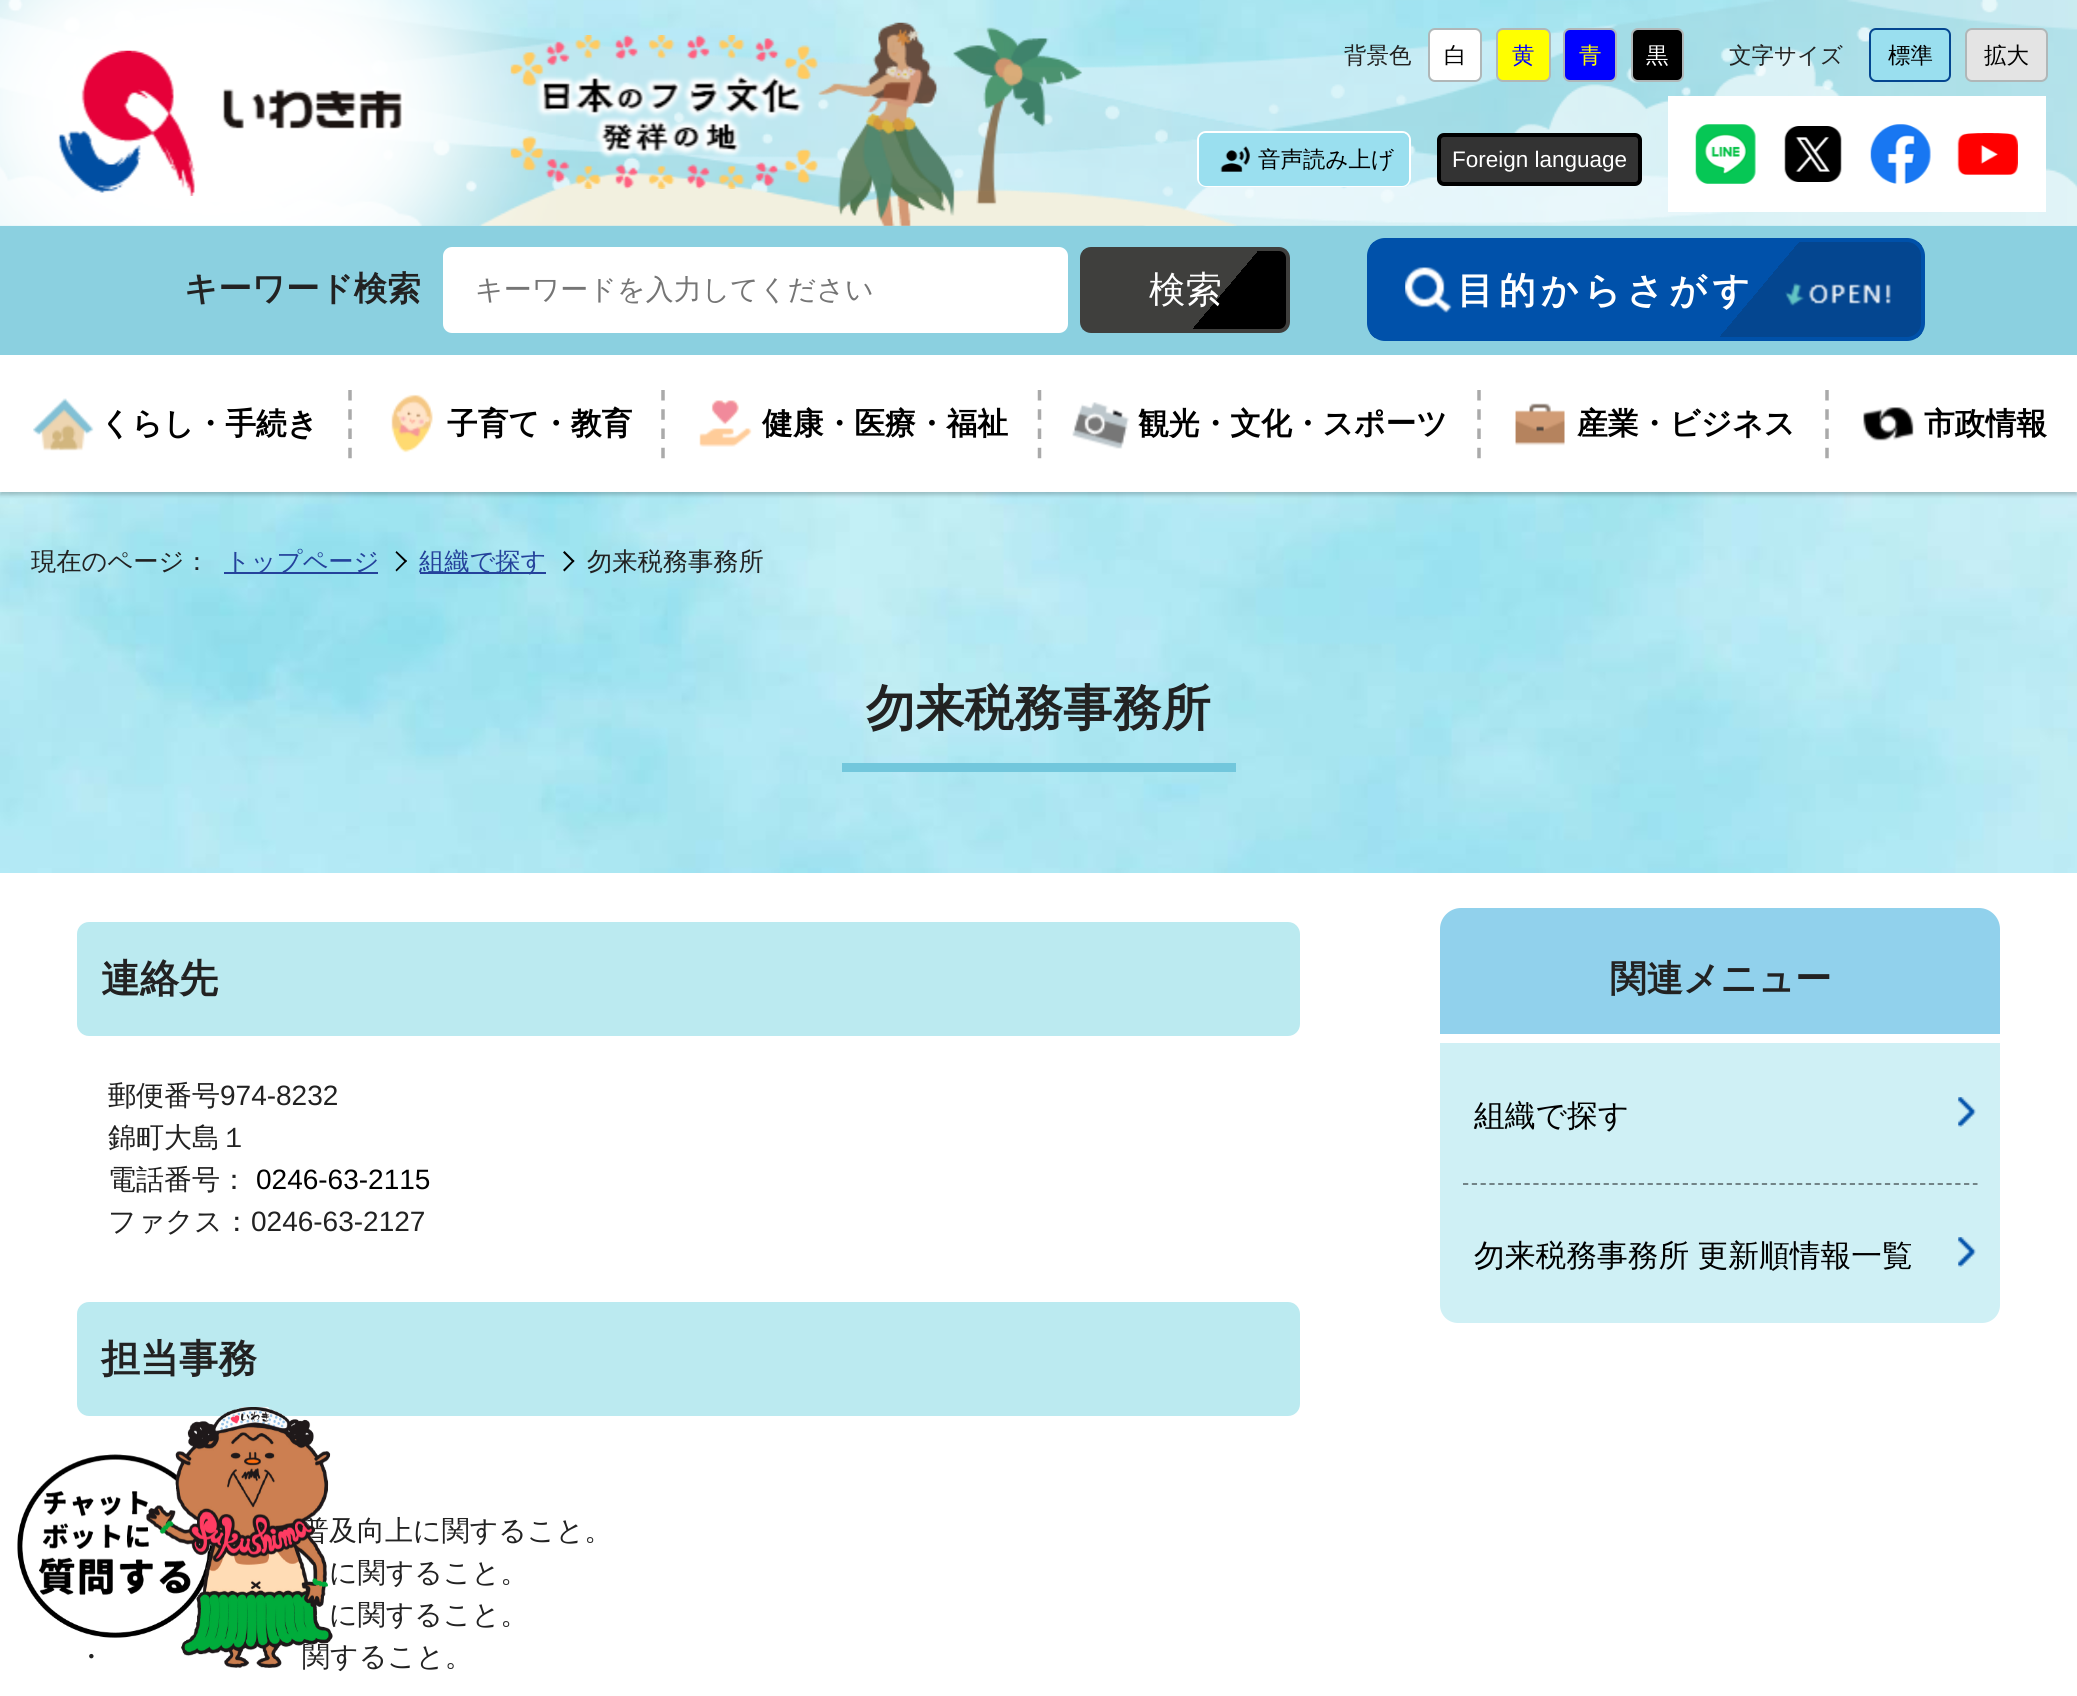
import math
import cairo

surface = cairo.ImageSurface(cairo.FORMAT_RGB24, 2077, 1696)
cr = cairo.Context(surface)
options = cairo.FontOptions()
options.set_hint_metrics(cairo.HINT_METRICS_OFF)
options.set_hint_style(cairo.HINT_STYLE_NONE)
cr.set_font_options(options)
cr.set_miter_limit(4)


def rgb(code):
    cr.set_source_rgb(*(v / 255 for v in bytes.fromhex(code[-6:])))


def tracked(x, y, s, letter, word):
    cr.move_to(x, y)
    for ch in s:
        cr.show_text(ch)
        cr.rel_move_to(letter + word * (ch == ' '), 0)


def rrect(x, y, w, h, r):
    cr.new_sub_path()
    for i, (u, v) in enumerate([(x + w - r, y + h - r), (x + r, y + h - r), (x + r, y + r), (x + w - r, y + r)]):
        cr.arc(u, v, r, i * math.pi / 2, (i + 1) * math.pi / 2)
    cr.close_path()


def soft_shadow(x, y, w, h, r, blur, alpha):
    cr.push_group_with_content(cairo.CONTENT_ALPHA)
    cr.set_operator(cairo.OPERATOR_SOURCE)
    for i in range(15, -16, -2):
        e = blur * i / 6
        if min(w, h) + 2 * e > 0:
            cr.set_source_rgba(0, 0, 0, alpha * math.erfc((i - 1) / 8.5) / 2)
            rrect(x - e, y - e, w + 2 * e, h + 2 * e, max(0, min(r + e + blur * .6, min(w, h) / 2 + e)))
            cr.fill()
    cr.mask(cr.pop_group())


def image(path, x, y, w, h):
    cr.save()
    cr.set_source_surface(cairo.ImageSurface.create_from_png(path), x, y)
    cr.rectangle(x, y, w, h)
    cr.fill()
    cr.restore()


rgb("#ffffff")
cr.paint()
image("img/1.png", 0, 0, 2077, 873)
rgb("#000000")
soft_shadow(0, 229, 2077, 266, 0, 2, 0.2)
image("img/2.png", 0, 0, 2077, 226)
image("img/3.png", 479, 22, 758, 204)
image("img/4.png", 0, 0, 556, 226)
image("img/5.png", 58, 50, 347, 146)
image("img/6.png", 510, 35, 308, 154)
rgb("#ffffff")
rrect(1429, 29, 52, 52, 6)
cr.fill_preserve()
rgb("#b0b7b8")
cr.stroke()
rgb("#ffff00")
rrect(1497, 29, 53, 52, 6)
cr.fill_preserve()
rgb("#b0b7b8")
cr.stroke()
rgb("#0000ff")
rrect(1564, 29, 52, 52, 6)
cr.fill_preserve()
rgb("#b0b7b8")
cr.stroke()
rgb("#000000")
rrect(1632, 29, 51, 52, 6)
cr.fill_preserve()
rgb("#b0b7b8")
cr.stroke()
rgb("#9adfef")
rrect(1870, 29, 80, 52, 6)
cr.fill_preserve()
rgb("#044690")
cr.stroke()
rgb("#e4e4e4")
rrect(1966, 29, 81, 52, 6)
cr.fill_preserve()
rgb("#b0b7b8")
cr.stroke()
rrect(1198, 132, 212, 54, 8)
rgb("#ffffff")
cr.stroke()
rgb("#9adfef")
rrect(1199, 133, 210, 53, 7)
cr.fill()
image("img/7.png", 1220, 146, 30, 26)
rgb("#333333")
rrect(1439, 135, 201, 49, 5)
cr.fill_preserve()
rgb("#000000")
cr.set_line_width(4)
cr.stroke()
rgb("#ffffff")
cr.rectangle(1668, 96, 378, 116)
cr.fill()
image("img/8.png", 1695, 124, 61, 60)
image("img/9.png", 1784, 126, 58, 56)
image("img/10.png", 1870, 124, 61, 60)
image("img/11.png", 1957, 133, 61, 42)
cr.rectangle(0, 355, 2077, 137)
cr.fill()
rgb("#8bd0e0")
cr.rectangle(0, 226, 2077, 129)
cr.fill()
rgb("#ffffff")
rrect(445, 249, 621, 82, 7)
cr.fill_preserve()
cr.stroke()
cr.save()
rrect(1080, 247, 210, 86, 11)
cr.clip()
gradient = cairo.LinearGradient(1467, 277, 1309, 145)
gradient.add_color_stop_rgba(0, 0, 0, 0, 1)
gradient.add_color_stop_rgba(0.35, 0, 0, 0, 1)
gradient.add_color_stop_rgba(0.35, 0.247, 0.247, 0.239, 1)
gradient.add_color_stop_rgba(1, 0.247, 0.247, 0.239, 1)
cr.set_source(gradient)
cr.rectangle(1286, 249, 4, 1)
cr.fill()
cr.restore()
gradient = cairo.LinearGradient(1264, 356, 1106, 223)
gradient.add_color_stop_rgba(0, 0, 0, 0, 1)
gradient.add_color_stop_rgba(0.35, 0, 0, 0, 1)
gradient.add_color_stop_rgba(0.35, 0.247, 0.247, 0.239, 1)
gradient.add_color_stop_rgba(1, 0.247, 0.247, 0.239, 1)
cr.set_source(gradient)
cr.rectangle(1083, 250, 203, 79)
cr.fill()
cr.save()
rrect(1080, 247, 210, 86, 11)
cr.clip()
gradient = cairo.LinearGradient(1061, 435, 903, 302)
gradient.add_color_stop_rgba(0, 0, 0, 0, 1)
gradient.add_color_stop_rgba(0.35, 0, 0, 0, 1)
gradient.add_color_stop_rgba(0.35, 0.247, 0.247, 0.239, 1)
gradient.add_color_stop_rgba(1, 0.247, 0.247, 0.239, 1)
cr.set_source(gradient)
cr.rectangle(1082, 329, 1, 4)
cr.fill()
cr.restore()
rrect(1082, 249, 206, 82, 9)
rgb("#3f3f3d")
cr.stroke()
cr.save()
rrect(1367, 238, 558, 103, 18)
cr.clip()
gradient = cairo.LinearGradient(1831, 445, 1460, 134)
gradient.add_color_stop_rgba(0, 0.016, 0.275, 0.565, 1)
gradient.add_color_stop_rgba(0.32, 0.016, 0.275, 0.565, 1)
gradient.add_color_stop_rgba(0.32, 0, 0.318, 0.667, 1)
gradient.add_color_stop_rgba(1, 0, 0.318, 0.667, 1)
cr.set_source(gradient)
cr.rectangle(1370, 242, 552, 96)
cr.fill()
cr.restore()
rrect(1369, 240, 554, 99, 16)
rgb("#0051aa")
cr.stroke()
image("img/12.png", 1405, 267, 47, 46)
image("img/13.png", 1785, 283, 106, 23)
image("img/14.png", 33, 398, 61, 53)
cr.new_path()
cr.move_to(350, 390)
cr.line_to(350, 458.5)
rgb("#aaaaaa")
cr.set_line_width(3.5)
cr.set_dash([10.5, 8.75])
cr.stroke()
image("img/15.png", 391, 394, 42, 59)
cr.new_path()
cr.move_to(663, 390)
cr.line_to(663, 458.5)
cr.stroke()
image("img/16.png", 699, 400, 53, 47)
cr.new_path()
cr.move_to(1039.5, 390)
cr.line_to(1039.5, 458.5)
cr.stroke()
image("img/17.png", 1072, 402, 58, 47)
cr.new_path()
cr.move_to(1479, 390)
cr.line_to(1479, 458.5)
cr.stroke()
image("img/18.png", 1515, 403, 50, 43)
cr.new_path()
cr.move_to(1827, 390)
cr.line_to(1827, 458.5)
cr.stroke()
image("img/19.png", 1863, 407, 51, 34)
rgb("#24429b")
cr.rectangle(224, 572, 154, 2)
cr.fill()
rgb("#000000")
cr.new_path()
cr.move_to(395.5, 552.5)
cr.line_to(396.5, 551)
cr.line_to(407, 561)
cr.line_to(405.5, 562.5)
cr.close_path()
cr.fill()
cr.new_path()
cr.move_to(395.5, 570)
cr.line_to(405.5, 560)
cr.line_to(407, 561)
cr.line_to(396.5, 571.5)
cr.close_path()
cr.fill()
rgb("#24429b")
cr.rectangle(420, 572, 126, 2)
cr.fill()
rgb("#000000")
cr.new_path()
cr.move_to(563, 552.5)
cr.line_to(564.5, 551)
cr.line_to(574.5, 561)
cr.line_to(573, 562.5)
cr.close_path()
cr.fill()
cr.new_path()
cr.move_to(563, 570)
cr.line_to(573, 560)
cr.line_to(574.5, 561)
cr.line_to(564.5, 571.5)
cr.close_path()
cr.fill()
rgb("#72c7dc")
cr.rectangle(842, 763, 394, 9)
cr.fill()
rgb("#bbeaf0")
rrect(77, 922, 1223, 114, 12)
cr.fill()
rrect(77, 1302, 1223, 114, 12)
cr.fill()
rgb("#91d1ec")
cr.new_path()
cr.move_to(1461, 908)
cr.line_to(1979, 908)
cr.curve_to(1990.5, 908, 2000, 917.5, 2000, 929)
cr.line_to(2000, 1034)
cr.line_to(1440, 1034)
cr.line_to(1440, 929)
cr.curve_to(1440, 917.5, 1449.5, 908, 1461, 908)
cr.close_path()
cr.fill()
rgb("#cff0f5")
cr.rectangle(1440, 1043, 560, 140)
cr.fill()
image("img/20.png", 1958, 1097, 18, 30)
cr.new_path()
cr.move_to(1440, 1183)
cr.line_to(2000, 1183)
cr.line_to(2000, 1305)
cr.curve_to(2000, 1315, 1992, 1323, 1982, 1323)
cr.line_to(1458, 1323)
cr.curve_to(1448, 1323, 1440, 1315, 1440, 1305)
cr.close_path()
cr.fill()
cr.new_path()
cr.move_to(1463, 1184)
cr.line_to(1977.5, 1184)
rgb("#68787b")
cr.set_line_width(1.8)
cr.set_dash([5.25, 3.54])
cr.stroke()
image("img/20.png", 1958, 1237, 18, 30)
cr.select_font_face("WenQuanYi Zen Hei Medium")
cr.set_font_size(22.5)
rgb("#222222")
cr.move_to(1344, 63)
cr.show_text("背景色")
rgb("#000000")
cr.move_to(1444, 63)
cr.show_text("白")
rgb("#0000ff")
cr.move_to(1512, 63)
cr.show_text("黄")
rgb("#ffff00")
cr.move_to(1579, 63)
cr.show_text("青")
rgb("#ffffff")
cr.move_to(1646, 63)
cr.show_text("黒")
rgb("#222222")
cr.move_to(1729, 63)
cr.show_text("文字サイズ")
rgb("#000000")
for x, y, s in [
    (1888, 63, "標準"),
    (1984, 63, "拡大"),
    (1258, 167, "音声読み上げ"),
]:
    cr.move_to(x, y)
    cr.show_text(s)
cr.select_font_face("Liberation Sans")
rgb("#ffffff")
cr.move_to(1452, 167)
cr.show_text("Foreign language")
cr.select_font_face("WenQuanYi Zen Hei", cairo.FONT_SLANT_NORMAL, cairo.FONT_WEIGHT_BOLD)
cr.set_font_size(33.5)
rgb("#222222")
cr.move_to(184, 300)
cr.show_text("キーワード検索")
cr.select_font_face("WenQuanYi Zen Hei Medium")
cr.set_font_size(28)
rgb("#757575")
cr.move_to(475, 299)
cr.show_text("キーワードを入力してください")
cr.set_font_size(36.5)
rgb("#ffffff")
cr.move_to(1149, 302)
cr.show_text("検索")
cr.select_font_face("WenQuanYi Zen Hei", cairo.FONT_SLANT_NORMAL, cairo.FONT_WEIGHT_BOLD)
tracked(1457, 303, "目的からさがす", 5.5, 0)
cr.set_font_size(30.75)
rgb("#000000")
for x, y, s in [
    (100, 434, "くらし・手続き"),
    (447, 434, "子育て・教育"),
    (762, 434, "健康・医療・福祉"),
    (1138, 434, "観光・文化・スポーツ"),
    (1577, 434, "産業・ビジネス"),
    (1924, 434, "市政情報"),
]:
    cr.move_to(x, y)
    cr.show_text(s)
cr.select_font_face("WenQuanYi Zen Hei Medium")
cr.set_font_size(25.25)
rgb("#222222")
cr.move_to(31, 570)
cr.show_text("現在のページ：")
rgb("#24429b")
cr.move_to(225, 570)
cr.show_text("トップページ")
cr.move_to(419, 570)
cr.show_text("組織で探す")
rgb("#222222")
cr.move_to(587, 570)
cr.show_text("勿来税務事務所")
cr.select_font_face("WenQuanYi Zen Hei", cairo.FONT_SLANT_NORMAL, cairo.FONT_WEIGHT_BOLD)
cr.set_font_size(49.25)
cr.move_to(866, 725)
cr.show_text("勿来税務事務所")
cr.set_font_size(39)
cr.move_to(101, 992)
cr.show_text("連絡先")
cr.select_font_face("WenQuanYi Zen Hei Medium")
cr.set_font_size(28)
cr.move_to(108, 1105)
cr.show_text("郵便番号")
cr.select_font_face("Liberation Sans")
cr.move_to(220, 1105)
cr.show_text("974-8232")
cr.select_font_face("WenQuanYi Zen Hei Medium")
cr.move_to(108, 1147)
cr.show_text("錦町大島１")
cr.move_to(108, 1189)
cr.show_text("電話番号：")
cr.select_font_face("Liberation Sans")
rgb("#000000")
cr.move_to(256, 1189)
cr.show_text("0246-63-2115")
cr.select_font_face("WenQuanYi Zen Hei Medium")
rgb("#222222")
cr.move_to(108, 1231)
cr.show_text("ファクス：")
cr.select_font_face("Liberation Sans")
cr.move_to(251, 1231)
cr.show_text("0246-63-2127")
cr.select_font_face("WenQuanYi Zen Hei", cairo.FONT_SLANT_NORMAL, cairo.FONT_WEIGHT_BOLD)
cr.set_font_size(39)
cr.move_to(101, 1372)
cr.show_text("担当事務")
cr.select_font_face("WenQuanYi Zen Hei Medium")
cr.set_font_size(28)
for x, y, s in [
    (301, 1540, "普及向上に関すること。"),
    (329, 1582, "に関すること。"),
    (329, 1624, "に関すること。"),
    (77, 1666, "・"),
    (302, 1666, "関すること。"),
]:
    cr.move_to(x, y)
    cr.show_text(s)
cr.select_font_face("WenQuanYi Zen Hei", cairo.FONT_SLANT_NORMAL, cairo.FONT_WEIGHT_BOLD)
cr.set_font_size(36.5)
cr.move_to(1610, 991)
cr.show_text("関連メニュー")
cr.select_font_face("WenQuanYi Zen Hei Medium")
cr.set_font_size(30.75)
rgb("#000000")
cr.move_to(1474, 1126)
cr.show_text("組織で探す")
tracked(1474, 1266, "勿来税務事務所 更新順情報一覧", 0, -1)
image("img/21.png", 17, 1407, 316, 261)
surface.write_to_png("page.png")
